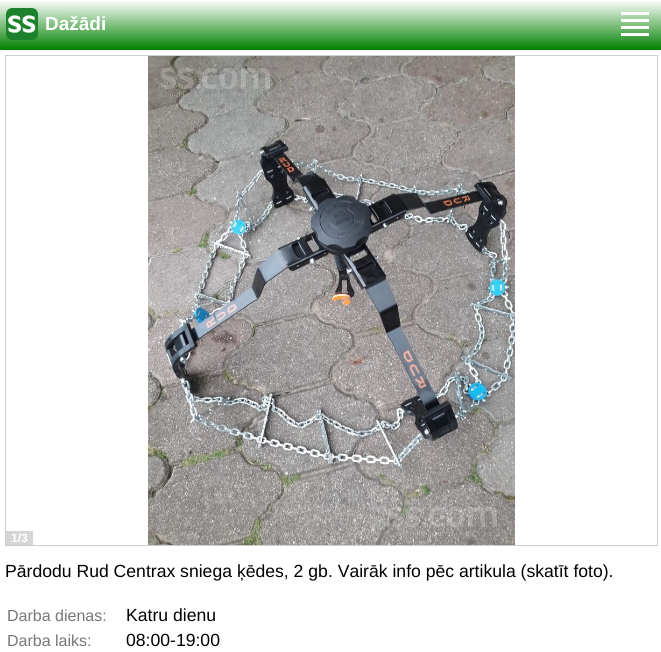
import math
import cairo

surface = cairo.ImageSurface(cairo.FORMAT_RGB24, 661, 652)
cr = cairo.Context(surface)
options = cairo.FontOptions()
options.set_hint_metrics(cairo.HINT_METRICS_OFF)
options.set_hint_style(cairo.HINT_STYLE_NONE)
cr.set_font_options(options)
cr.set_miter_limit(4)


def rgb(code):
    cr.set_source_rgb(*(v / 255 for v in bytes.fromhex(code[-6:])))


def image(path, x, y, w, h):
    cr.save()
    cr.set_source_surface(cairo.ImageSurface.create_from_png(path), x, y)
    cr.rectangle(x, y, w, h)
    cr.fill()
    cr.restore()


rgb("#ffffff")
cr.paint()
gradient = cairo.LinearGradient(331, 0, 331, 50)
gradient.add_color_stop_rgba(0, 1, 1, 1, 1)
gradient.add_color_stop_rgba(1, 0, 0.502, 0, 1)
cr.set_source(gradient)
cr.rectangle(0, 0, 661, 50)
cr.fill()
image("img/1.png", 6, 8, 32, 32)
image("img/2.png", 621, 12, 28, 24)
cr.rectangle(5.5, 55.5, 652, 490)
rgb("#cccccc")
cr.set_line_width(1)
cr.stroke()
rgb("#d6d6d6")
cr.rectangle(6, 531, 27, 14)
cr.fill()
image("img/3.png", 148, 56, 367, 489)
cr.select_font_face("Liberation Sans", cairo.FONT_SLANT_NORMAL, cairo.FONT_WEIGHT_BOLD)
cr.set_font_size(19)
rgb("#ffffff")
cr.move_to(45, 30)
cr.show_text("Dažādi")
cr.set_font_size(12)
cr.move_to(11, 542)
cr.show_text("1/3")
cr.select_font_face("Liberation Sans")
cr.set_font_size(17.6)
rgb("#000000")
cr.move_to(5, 577)
cr.show_text("Pārdodu Rud Centrax sniega ķēdes, 2 gb. Vairāk info pēc artikula (skatīt foto).")
cr.set_font_size(16)
rgb("#777777")
cr.move_to(7, 621)
cr.show_text("Darba dienas:")
cr.set_font_size(17.6)
rgb("#000000")
cr.move_to(126, 621)
cr.show_text("Katru dienu")
cr.set_font_size(16)
rgb("#777777")
cr.move_to(7, 646)
cr.show_text("Darba laiks:")
cr.set_font_size(17.6)
rgb("#000000")
cr.move_to(126, 646)
cr.show_text("08:00-19:00")
surface.write_to_png("page.png")
